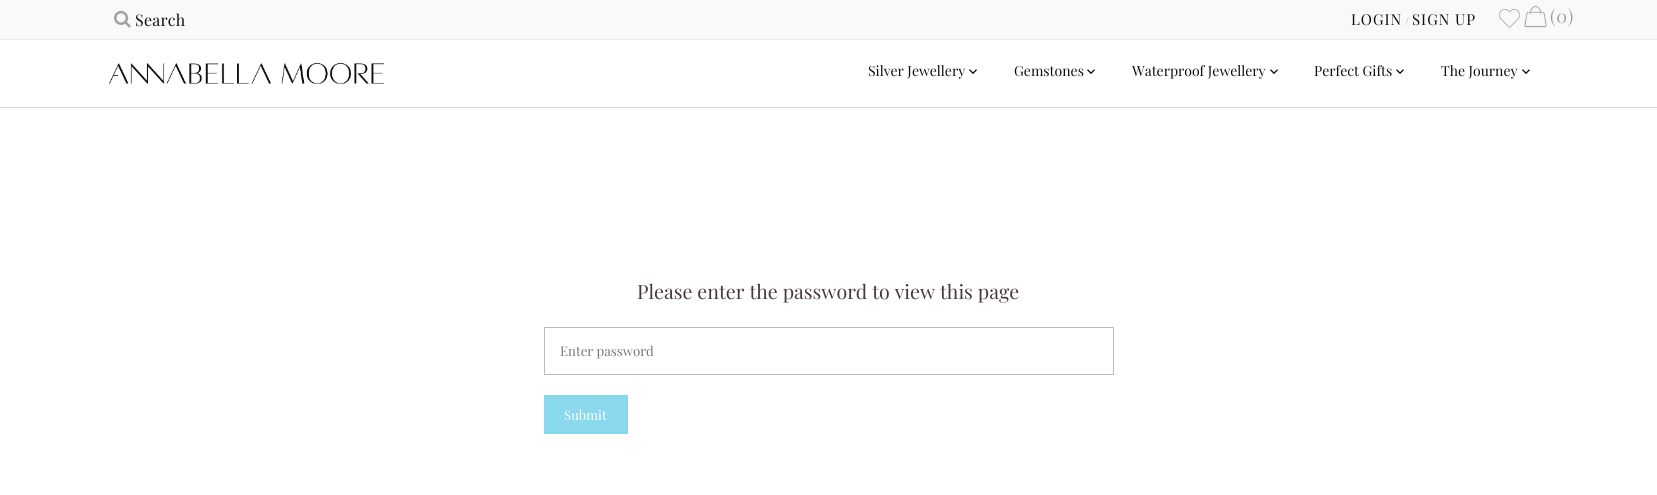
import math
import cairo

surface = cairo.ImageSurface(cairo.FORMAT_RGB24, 1657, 495)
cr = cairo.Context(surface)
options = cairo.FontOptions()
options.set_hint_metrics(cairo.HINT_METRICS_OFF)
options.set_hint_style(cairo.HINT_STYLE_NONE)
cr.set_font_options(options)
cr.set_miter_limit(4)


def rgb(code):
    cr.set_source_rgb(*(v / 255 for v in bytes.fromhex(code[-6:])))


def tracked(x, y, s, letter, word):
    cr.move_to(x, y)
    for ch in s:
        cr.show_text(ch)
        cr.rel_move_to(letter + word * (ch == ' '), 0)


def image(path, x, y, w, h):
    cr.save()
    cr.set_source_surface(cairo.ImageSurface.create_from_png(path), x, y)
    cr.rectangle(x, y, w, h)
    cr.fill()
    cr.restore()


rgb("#ffffff")
cr.paint()
for x, y, w, h, color in [
    (0, 107, 1657, 1, "#dadada"),
    (0, 0, 1657, 39, "#f9f9f9"),
    (0, 39, 1657, 1, "#ececec"),
]:
    rgb(color)
    cr.rectangle(x, y, w, h)
    cr.fill()
image("img/1.png", 114, 10, 17, 18)
image("img/2.png", 1499, 9, 21, 19)
image("img/3.png", 1524, 5, 23, 23)
image("img/4.png", 109, 62, 275, 22)
image("img/5.png", 969, 69, 8, 5)
image("img/5.png", 1087, 69, 8, 5)
image("img/5.png", 1270, 69, 8, 5)
image("img/5.png", 1396, 69, 8, 5)
image("img/5.png", 1522, 69, 8, 5)
cr.rectangle(544.5, 327.5, 569, 47)
rgb("#bcbcbc")
cr.set_line_width(1)
cr.stroke()
rgb("#8ad8ed")
cr.rectangle(544, 395, 84, 39)
cr.fill()
cr.select_font_face("Playfair Display")
cr.set_font_size(16)
rgb("#0d0d0d")
tracked(135, 26, "Search", 0.25, 0)
cr.set_font_size(15)
tracked(1351, 25, "LOGIN", 1, 0)
cr.set_font_size(11)
rgb("#8f8f8f")
tracked(1405, 25, "/", 0.25, 0)
cr.set_font_size(15)
rgb("#0d0d0d")
tracked(1412, 25, "SIGN UP", 1, 0)
cr.set_font_size(18)
rgb("#a2a2a2")
tracked(1550, 23, "(0)", 1, 0)
cr.set_font_size(14)
rgb("#0d0d0d")
for x, y, s in [
    (868, 76, "Silver Jewellery"),
    (1014, 76, "Gemstones"),
    (1132, 76, "Waterproof Jewellery"),
    (1314, 76, "Perfect Gifts"),
    (1441, 76, "The Journey"),
]:
    cr.move_to(x, y)
    cr.show_text(s)
cr.set_font_size(19.6)
rgb("#483938")
cr.move_to(637, 299)
cr.show_text("Please enter the password to view this page")
cr.set_font_size(13.25)
rgb("#757575")
cr.move_to(560, 356)
cr.show_text("Enter password")
rgb("#ffffff")
cr.move_to(564, 420)
cr.show_text("Submit")
surface.write_to_png("page.png")
